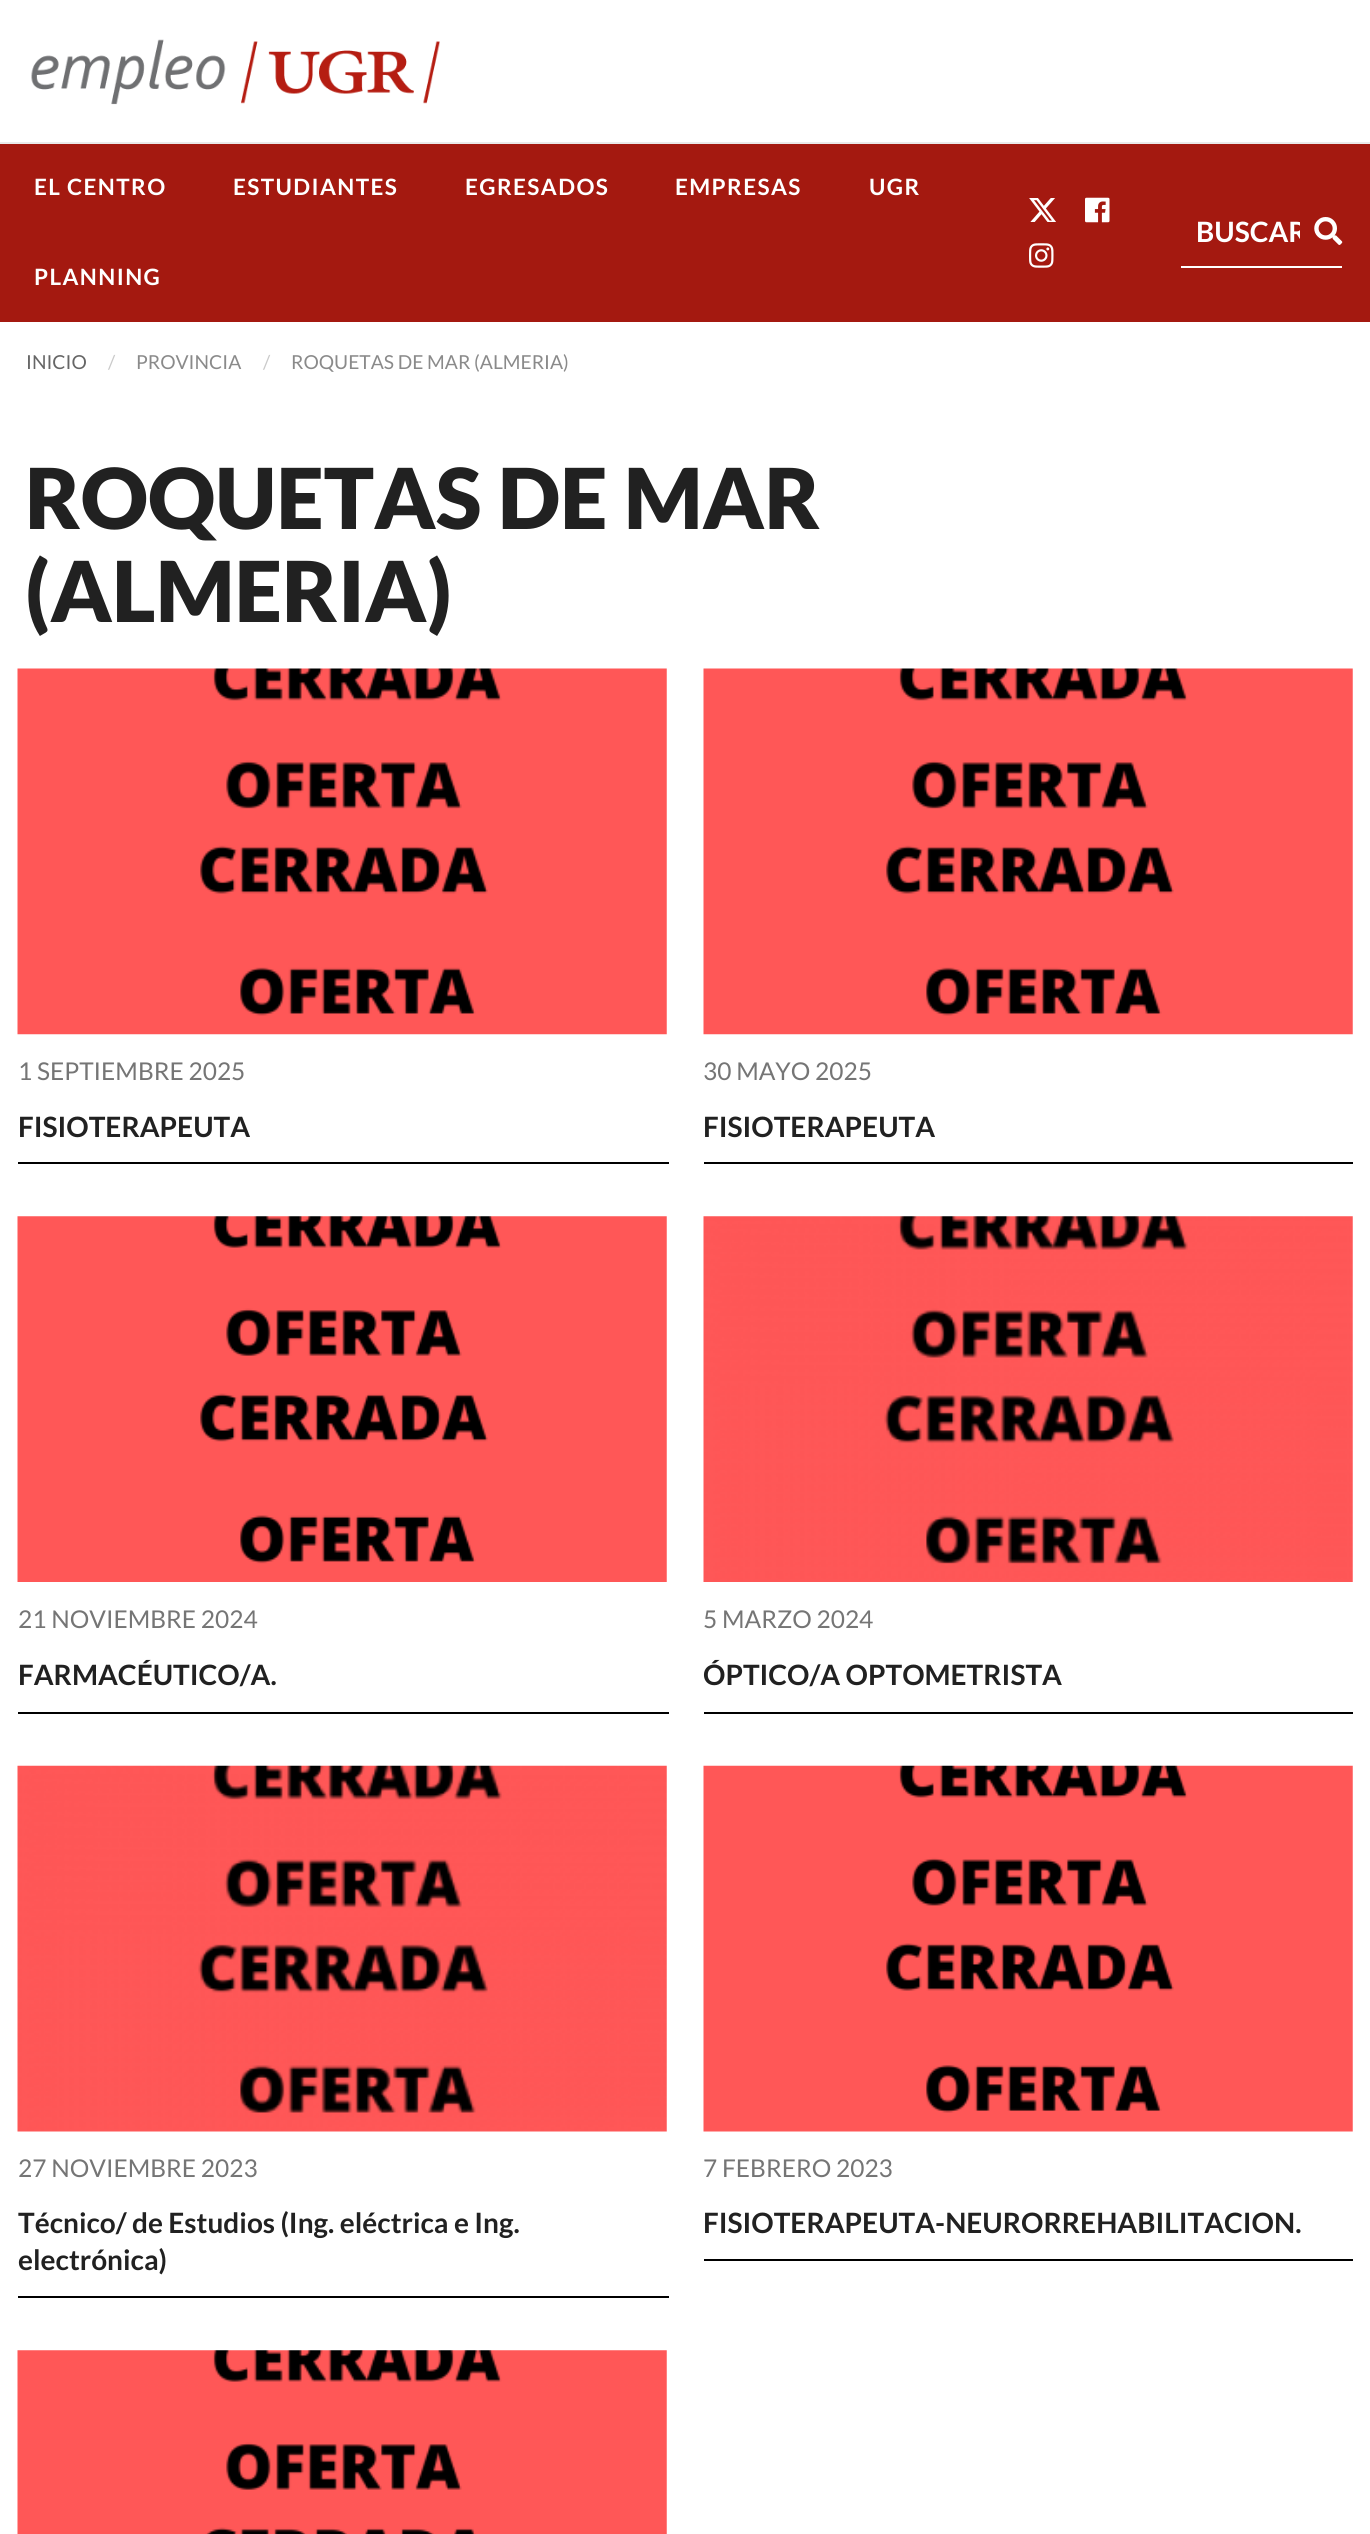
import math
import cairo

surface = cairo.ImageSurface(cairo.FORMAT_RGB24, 1370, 2534)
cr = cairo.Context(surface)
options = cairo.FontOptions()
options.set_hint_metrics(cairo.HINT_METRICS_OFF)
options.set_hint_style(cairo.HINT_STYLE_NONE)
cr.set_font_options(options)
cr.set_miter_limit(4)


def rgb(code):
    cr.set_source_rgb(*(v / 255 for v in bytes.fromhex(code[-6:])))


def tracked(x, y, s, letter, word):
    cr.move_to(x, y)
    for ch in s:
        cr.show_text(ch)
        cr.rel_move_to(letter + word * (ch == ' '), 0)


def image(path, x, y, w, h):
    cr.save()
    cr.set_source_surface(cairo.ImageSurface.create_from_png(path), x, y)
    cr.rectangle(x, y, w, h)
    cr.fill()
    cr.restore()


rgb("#ffffff")
cr.paint()
image("img/1.png", 31, 39, 409, 66)
rgb("#eaeaea")
cr.rectangle(0, 142, 1370, 2)
cr.fill()
rgb("#a41910")
cr.rectangle(0, 144, 1370, 178)
cr.fill()
image("img/2.png", 1029, 198, 27, 24)
image("img/3.png", 1085, 197, 25, 26)
image("img/4.png", 1029, 243, 25, 25)
rgb("#ffffff")
cr.rectangle(1181, 266, 161, 2)
cr.fill()
image("img/5.png", 1314, 217, 29, 28)
image("img/6.png", 17, 668, 650, 367)
rgb("#000000")
cr.rectangle(18, 1162, 651, 2)
cr.fill()
image("img/6.png", 703, 668, 650, 367)
cr.rectangle(704, 1162, 649, 2)
cr.fill()
image("img/7.png", 17, 1216, 650, 366)
cr.rectangle(18, 1712, 651, 2)
cr.fill()
image("img/8.png", 703, 1216, 650, 366)
cr.rectangle(704, 1712, 649, 2)
cr.fill()
image("img/9.png", 17, 1765, 650, 367)
cr.rectangle(18, 2296, 651, 2)
cr.fill()
image("img/10.png", 703, 1765, 650, 367)
cr.rectangle(704, 2259, 649, 2)
cr.fill()
image("img/11.png", 17, 2350, 650, 184)
cr.select_font_face("Lato", cairo.FONT_SLANT_NORMAL, cairo.FONT_WEIGHT_BOLD)
cr.set_font_size(22.5)
rgb("#ffffff")
for x, y, s in [
    (34, 195, "EL CENTRO"),
    (233, 195, "ESTUDIANTES"),
    (465, 195, "EGRESADOS"),
    (675, 195, "EMPRESAS"),
    (869, 195, "UGR"),
    (34, 285, "PLANNING"),
]:
    tracked(x, y, s, 1.4, 0)
cr.save()
cr.rectangle(1195, 214, 105, 33)
cr.clip()
cr.set_font_size(28)
cr.move_to(1196, 242)
cr.show_text("BUSCAR")
cr.restore()
cr.select_font_face("Lato")
cr.set_font_size(19.25)
rgb("#666666")
cr.move_to(26, 369)
cr.show_text("INICIO")
rgb("#cacaca")
cr.move_to(108, 369)
cr.show_text("/")
rgb("#8a8a8a")
cr.move_to(136, 369)
cr.show_text("PROVINCIA")
rgb("#cacaca")
cr.move_to(263, 369)
cr.show_text("/")
rgb("#8a8a8a")
cr.move_to(291, 369)
cr.show_text("ROQUETAS DE MAR (ALMERIA)")
cr.select_font_face("Lato Black")
cr.set_font_size(84)
rgb("#212121")
cr.move_to(25, 529)
cr.show_text("ROQUETAS DE MAR")
cr.move_to(25, 622)
cr.show_text("(ALMERIA)")
cr.select_font_face("Lato")
cr.set_font_size(24.5)
rgb("#757575")
cr.move_to(18, 1080)
cr.show_text("1 SEPTIEMBRE 2025")
cr.select_font_face("Lato", cairo.FONT_SLANT_NORMAL, cairo.FONT_WEIGHT_BOLD)
cr.set_font_size(28)
rgb("#212121")
cr.move_to(18, 1137)
cr.show_text("FISIOTERAPEUTA")
cr.select_font_face("Lato")
cr.set_font_size(24.5)
rgb("#757575")
cr.move_to(703, 1080)
cr.show_text("30 MAYO 2025")
cr.select_font_face("Lato", cairo.FONT_SLANT_NORMAL, cairo.FONT_WEIGHT_BOLD)
cr.set_font_size(28)
rgb("#212121")
cr.move_to(703, 1137)
cr.show_text("FISIOTERAPEUTA")
cr.select_font_face("Lato")
cr.set_font_size(24.5)
rgb("#757575")
cr.move_to(18, 1628)
cr.show_text("21 NOVIEMBRE 2024")
cr.select_font_face("Lato", cairo.FONT_SLANT_NORMAL, cairo.FONT_WEIGHT_BOLD)
cr.set_font_size(28)
rgb("#212121")
cr.move_to(18, 1685)
cr.show_text("FARMACÉUTICO/A.")
cr.select_font_face("Lato")
cr.set_font_size(24.5)
rgb("#757575")
cr.move_to(703, 1628)
cr.show_text("5 MARZO 2024")
cr.select_font_face("Lato", cairo.FONT_SLANT_NORMAL, cairo.FONT_WEIGHT_BOLD)
cr.set_font_size(28)
rgb("#212121")
cr.move_to(703, 1685)
cr.show_text("ÓPTICO/A OPTOMETRISTA")
cr.select_font_face("Lato")
cr.set_font_size(24.5)
rgb("#757575")
cr.move_to(18, 2177)
cr.show_text("27 NOVIEMBRE 2023")
cr.select_font_face("Lato", cairo.FONT_SLANT_NORMAL, cairo.FONT_WEIGHT_BOLD)
cr.set_font_size(28)
rgb("#212121")
cr.move_to(18, 2233)
cr.show_text("Técnico/ de Estudios (Ing. eléctrica e Ing.")
cr.move_to(18, 2270)
cr.show_text("electrónica)")
cr.select_font_face("Lato")
cr.set_font_size(24.5)
rgb("#757575")
cr.move_to(703, 2177)
cr.show_text("7 FEBRERO 2023")
cr.select_font_face("Lato", cairo.FONT_SLANT_NORMAL, cairo.FONT_WEIGHT_BOLD)
cr.set_font_size(28)
rgb("#212121")
cr.move_to(703, 2233)
cr.show_text("FISIOTERAPEUTA-NEURORREHABILITACION.")
surface.write_to_png("page.png")
